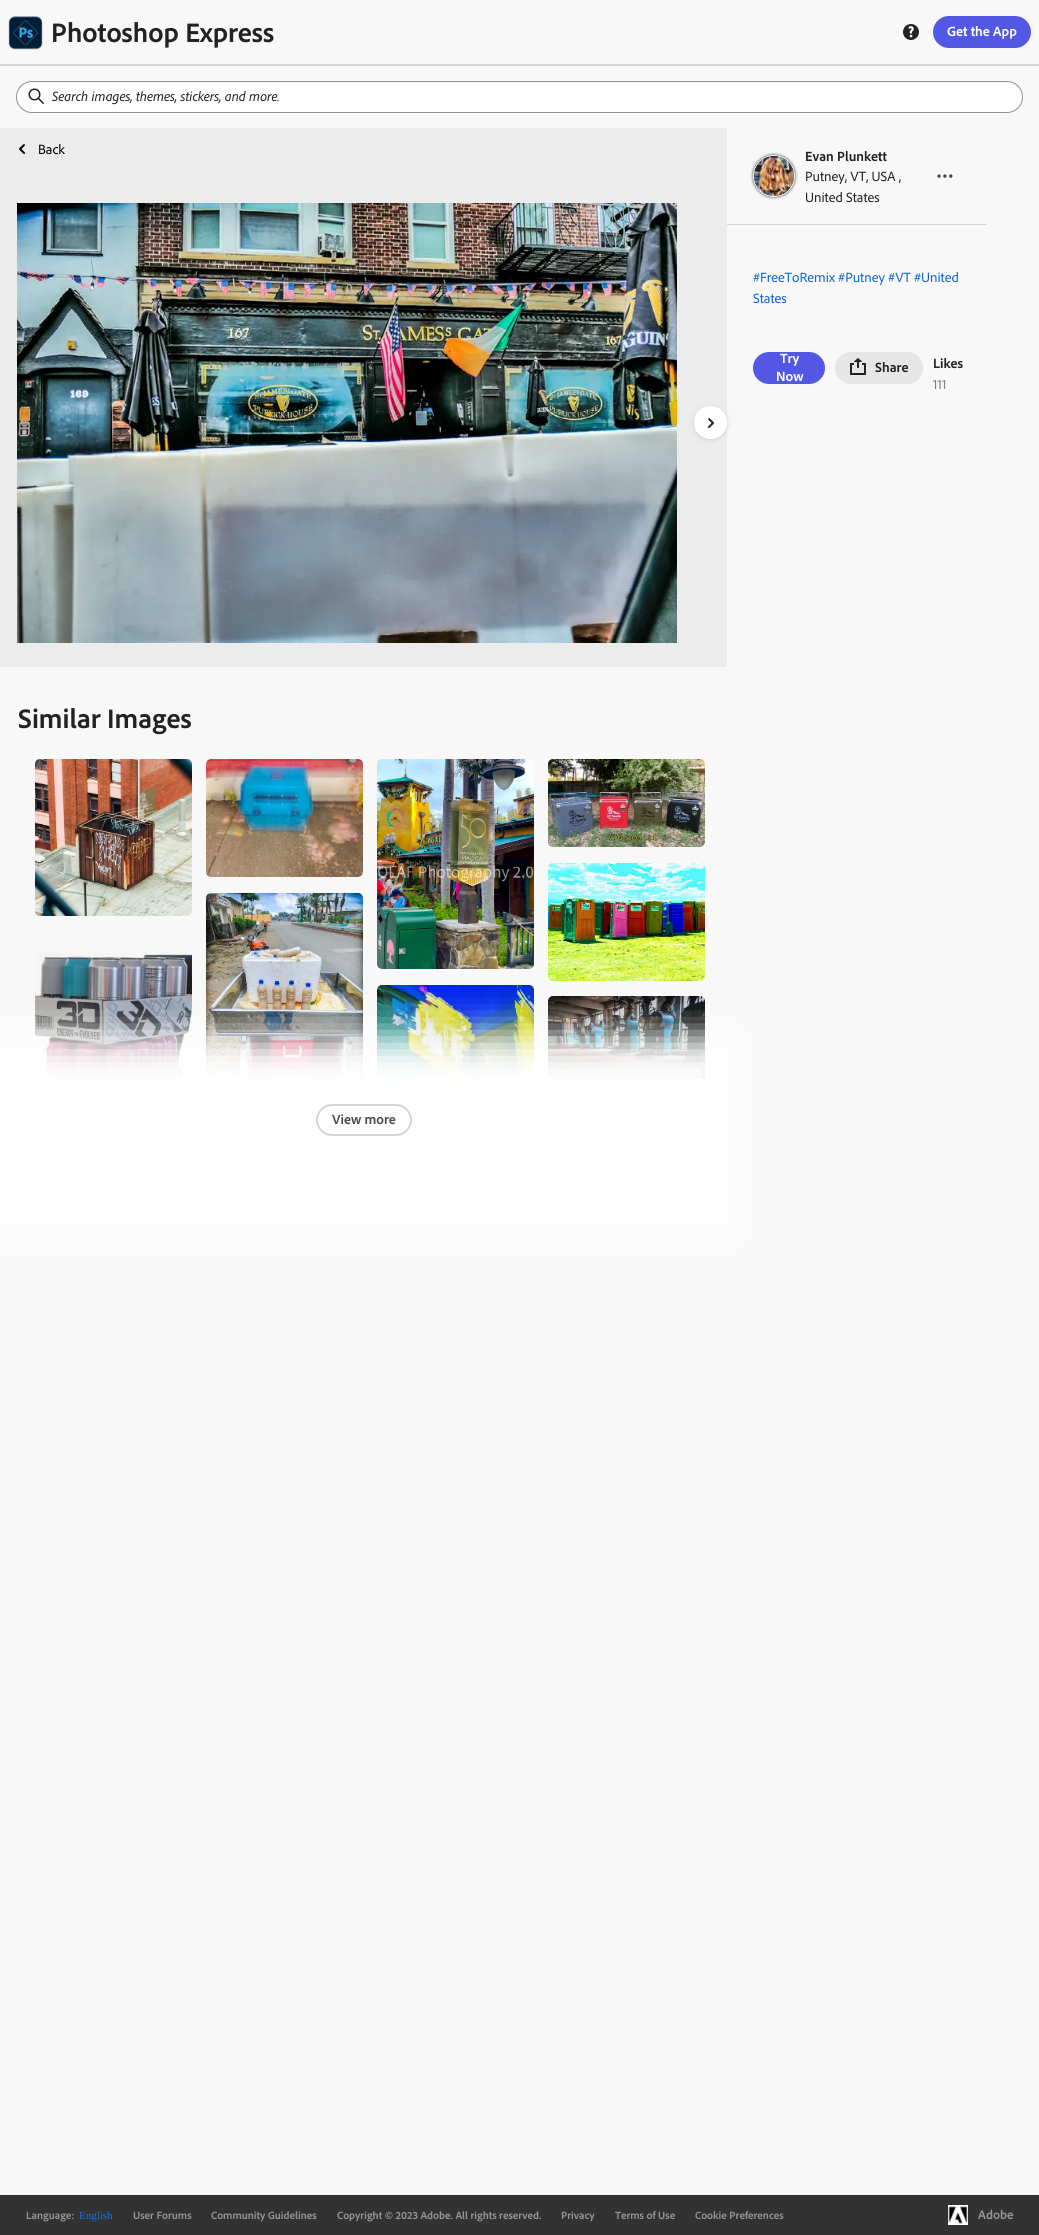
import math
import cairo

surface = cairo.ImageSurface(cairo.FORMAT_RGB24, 1039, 2235)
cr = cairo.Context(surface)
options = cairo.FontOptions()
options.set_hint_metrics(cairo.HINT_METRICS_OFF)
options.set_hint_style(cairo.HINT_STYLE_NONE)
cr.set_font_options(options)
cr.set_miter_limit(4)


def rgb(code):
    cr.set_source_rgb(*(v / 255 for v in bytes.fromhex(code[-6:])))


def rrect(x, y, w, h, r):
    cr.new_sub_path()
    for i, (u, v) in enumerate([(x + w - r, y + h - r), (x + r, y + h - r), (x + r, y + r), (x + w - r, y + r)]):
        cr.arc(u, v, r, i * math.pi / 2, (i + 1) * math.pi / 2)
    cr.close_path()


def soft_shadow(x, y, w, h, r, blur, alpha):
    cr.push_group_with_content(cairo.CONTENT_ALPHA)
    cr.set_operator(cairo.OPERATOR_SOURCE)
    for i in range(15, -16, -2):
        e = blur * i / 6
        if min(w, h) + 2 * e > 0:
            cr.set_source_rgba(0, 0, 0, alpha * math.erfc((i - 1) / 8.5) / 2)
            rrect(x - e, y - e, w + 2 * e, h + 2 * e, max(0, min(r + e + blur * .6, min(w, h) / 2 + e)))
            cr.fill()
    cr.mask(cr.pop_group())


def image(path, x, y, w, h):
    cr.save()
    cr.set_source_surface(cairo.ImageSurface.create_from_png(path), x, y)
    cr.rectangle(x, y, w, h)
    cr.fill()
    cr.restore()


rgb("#f8f8f8")
cr.paint()
rgb("#d5d5d5")
cr.rectangle(0, 64, 1039, 2)
cr.fill()
image("img/1.png", 8, 16, 35, 34)
image("img/2.png", 903, 24, 16, 16)
rgb("#5258e4")
rrect(933, 16, 98, 32, 16)
cr.fill()
rgb("#ffffff")
rrect(16.5, 81.5, 1006, 31, 15.5)
cr.fill_preserve()
rgb("#909090")
cr.set_line_width(1)
cr.stroke()
image("img/3.png", 28, 88, 16, 16)
rgb("#ececec")
cr.rectangle(0, 128, 727, 539)
cr.fill()
image("img/4.png", 19, 144, 6, 10)
image("img/5.png", 17, 203, 660, 440)
rgb("#d4cdcd")
soft_shadow(694, 407, 33, 33, 16, 2.5, 1)
rgb("#ffffff")
rrect(694, 406, 33, 33, 16)
cr.fill()
image("img/6.png", 708, 418, 6, 10)
rgb("#323232")
soft_shadow(753, 155, 42, 42, 21, 1.5, 1)
cr.arc(774, 176, 20.5, 0, 2 * math.pi)
rgb("#fafafa")
cr.stroke()
image("img/7.png", 754, 156, 40, 40)
rgb("#464646")
cr.arc(944.9, 176.1, 1.7, 0, 2 * math.pi)
cr.fill()
cr.arc(950.8, 176.1, 1.7, 0, 2 * math.pi)
cr.fill()
cr.arc(939, 176.1, 1.7, 0, 2 * math.pi)
cr.fill()
rgb("#d5d5d5")
rrect(727, 224, 260, 1, 0.5)
cr.fill()
rgb("#5258e4")
rrect(753, 352, 72, 32, 16)
cr.fill()
rgb("#e6e6e6")
rrect(835, 352, 88, 32, 16)
cr.fill()
image("img/8.png", 850, 358, 16, 17)
image("img/9.png", 35, 759, 157, 157)
image("img/10.png", 206, 759, 157, 118)
image("img/11.png", 548, 759, 157, 88)
image("img/12.png", 206, 893, 157, 186)
image("img/13.png", 377, 759, 157, 210)
image("img/14.png", 548, 863, 157, 118)
image("img/15.png", 35, 953, 157, 126)
image("img/16.png", 377, 985, 157, 94)
image("img/17.png", 548, 996, 157, 83)
rgb("#ffffff")
soft_shadow(-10, 1033, 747, 206, 0, 19.5, 1)
rrect(317, 1105, 94, 30, 15)
rgb("#d5d5d5")
cr.set_line_width(2)
cr.stroke()
rgb("#323232")
cr.rectangle(0, 2195, 1039, 40)
cr.fill()
rgb("#ffffff")
cr.rectangle(948, 2205, 20, 20)
cr.fill()
image("img/18.png", 948, 2206, 20, 18)
cr.select_font_face("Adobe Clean", cairo.FONT_SLANT_NORMAL, cairo.FONT_WEIGHT_BOLD)
cr.set_font_size(28)
rgb("#222222")
cr.move_to(51, 42)
cr.show_text("Photoshop Express")
cr.set_font_size(14)
rgb("#ffffff")
cr.move_to(947, 36)
cr.show_text("Get the App")
cr.select_font_face("Adobe Clean", cairo.FONT_SLANT_ITALIC)
rgb("#222222")
cr.move_to(52, 101)
cr.show_text("Search images, themes, stickers, and more.")
cr.select_font_face("Adobe Clean")
rgb("#000000")
cr.move_to(38, 154)
cr.show_text("Back")
cr.select_font_face("Adobe Clean", cairo.FONT_SLANT_NORMAL, cairo.FONT_WEIGHT_BOLD)
rgb("#222222")
cr.move_to(805, 161)
cr.show_text("Evan Plunkett")
cr.select_font_face("Adobe Clean")
cr.move_to(805, 181)
cr.show_text("Putney, VT, USA ,")
cr.move_to(805, 202)
cr.show_text("United States")
rgb("#0d66d0")
cr.move_to(753, 282)
cr.show_text("#FreeToRemix #Putney #VT #United")
cr.move_to(753, 303)
cr.show_text("States")
cr.select_font_face("Adobe Clean", cairo.FONT_SLANT_NORMAL, cairo.FONT_WEIGHT_BOLD)
rgb("#ffffff")
cr.move_to(780, 363)
cr.show_text("Try")
cr.move_to(776, 381)
cr.show_text("Now")
rgb("#222222")
cr.move_to(875, 372)
cr.show_text("Share")
cr.move_to(933, 368)
cr.show_text("Likes")
cr.select_font_face("Adobe Clean")
rgb("#808080")
cr.move_to(933, 389)
cr.show_text("111")
cr.select_font_face("Adobe Clean", cairo.FONT_SLANT_NORMAL, cairo.FONT_WEIGHT_BOLD)
cr.set_font_size(28)
rgb("#222222")
cr.move_to(18, 728)
cr.show_text("Similar Images")
cr.set_font_size(16)
rgb("#827f53")
cr.move_to(457, 951)
cr.show_text("Try Now")
cr.set_font_size(14)
rgb("#4b4b4b")
cr.move_to(332, 1124)
cr.show_text("View more")
cr.set_font_size(11)
rgb("#959595")
cr.move_to(26, 2219)
cr.show_text("Language:")
cr.select_font_face("Liberation Serif")
rgb("#1473e6")
cr.move_to(79, 2219)
cr.show_text("English")
cr.select_font_face("Adobe Clean", cairo.FONT_SLANT_NORMAL, cairo.FONT_WEIGHT_BOLD)
rgb("#959595")
for x, y, s in [
    (133, 2219, "User Forums"),
    (211, 2219, "Community Guidelines"),
    (337, 2219, "Copyright © 2023 Adobe. All rights reserved."),
    (561, 2219, "Privacy"),
    (615, 2219, "Terms of Use"),
    (695, 2219, "Cookie Preferences"),
]:
    cr.move_to(x, y)
    cr.show_text(s)
cr.set_font_size(13)
cr.move_to(978, 2219)
cr.show_text("Adobe")
surface.write_to_png("page.png")
